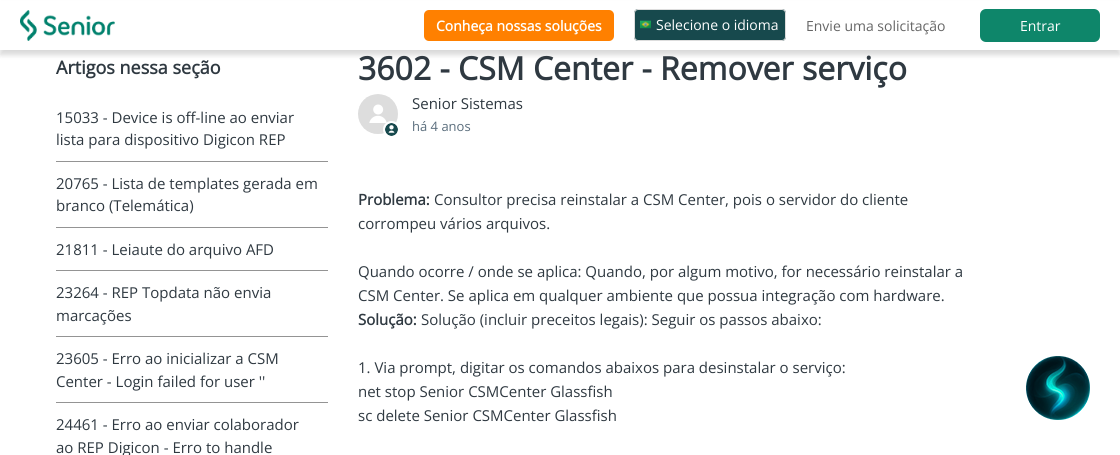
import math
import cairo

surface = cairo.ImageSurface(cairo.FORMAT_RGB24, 1120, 455)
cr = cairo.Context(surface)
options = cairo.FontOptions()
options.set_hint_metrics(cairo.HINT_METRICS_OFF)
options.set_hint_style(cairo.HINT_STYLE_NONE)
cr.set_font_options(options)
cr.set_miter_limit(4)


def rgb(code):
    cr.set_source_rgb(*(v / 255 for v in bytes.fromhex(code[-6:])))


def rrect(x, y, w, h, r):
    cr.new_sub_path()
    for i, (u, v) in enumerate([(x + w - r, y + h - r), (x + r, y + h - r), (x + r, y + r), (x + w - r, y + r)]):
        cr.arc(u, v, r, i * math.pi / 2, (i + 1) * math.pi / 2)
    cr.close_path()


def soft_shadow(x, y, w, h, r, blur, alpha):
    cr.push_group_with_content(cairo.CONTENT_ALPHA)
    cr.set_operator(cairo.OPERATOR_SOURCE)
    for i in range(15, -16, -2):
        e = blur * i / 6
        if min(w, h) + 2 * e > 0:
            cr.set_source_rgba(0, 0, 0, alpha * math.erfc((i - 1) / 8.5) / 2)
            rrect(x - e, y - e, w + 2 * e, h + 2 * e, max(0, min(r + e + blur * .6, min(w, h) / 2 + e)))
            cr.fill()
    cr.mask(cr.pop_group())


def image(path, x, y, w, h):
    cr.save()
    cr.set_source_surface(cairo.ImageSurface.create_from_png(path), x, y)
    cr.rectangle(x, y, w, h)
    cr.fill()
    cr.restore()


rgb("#ffffff")
cr.paint()
rgb("#000000")
soft_shadow(0, 5, 1120, 50, 0, 2.5, 0.15)
rgb("#ffffff")
cr.rectangle(0, 1, 1120, 49)
cr.fill()
image("img/1.png", 20, 10, 95, 31)
rgb("#ff8000")
rrect(424, 10, 190, 31, 5)
cr.fill()
rgb("#17494d")
rrect(634, 9, 152, 32, 4)
cr.fill()
image("img/2.png", 640, 20, 11, 9)
rrect(634.5, 9.5, 151, 31, 3.5)
rgb("#dddddd")
cr.set_line_width(1)
cr.stroke()
rgb("#0e866a")
rrect(980, 9, 120, 33, 6)
cr.fill()
for x, y, w, h, color in [
    (56, 161, 272, 1, "#949494"),
    (56, 227, 272, 1, "#949494"),
    (56, 270, 272, 1, "#949494"),
    (56, 336, 272, 1, "#949494"),
    (56, 402, 272, 1, "#949494"),
]:
    rgb(color)
    cr.rectangle(x, y, w, h)
    cr.fill()
image("img/3.png", 358, 94, 40, 40)
rgb("#ffffff")
cr.arc(391.5, 129.5, 7.5, 0, 2 * math.pi)
cr.fill_preserve()
cr.set_line_width(2)
cr.stroke()
image("img/4.png", 385, 123, 13, 13)
image("img/5.png", 1026, 356, 64, 64)
cr.select_font_face("Open Sans", cairo.FONT_SLANT_NORMAL, cairo.FONT_WEIGHT_BOLD)
cr.set_font_size(14)
cr.move_to(436, 31)
cr.show_text("Conheça nossas soluções")
cr.select_font_face("Open Sans")
cr.move_to(656, 30)
cr.show_text("Selecione o idioma")
rgb("#666666")
cr.move_to(806, 31)
cr.show_text("Envie uma solicitação")
rgb("#ffffff")
cr.move_to(1020, 31)
cr.show_text("Entrar")
cr.select_font_face("Open Sans", cairo.FONT_SLANT_NORMAL, cairo.FONT_WEIGHT_BOLD)
cr.set_font_size(18)
rgb("#2f3941")
cr.move_to(56, 74)
cr.show_text("Artigos nessa seção")
cr.select_font_face("Open Sans")
cr.set_font_size(15)
for x, y, s in [
    (56, 123, "15033 - Device is off-line ao enviar"),
    (56, 145, "lista para dispositivo Digicon REP"),
    (56, 189, "20765 - Lista de templates gerada em"),
    (56, 211, "branco (Telemática)"),
    (56, 255, "21811 - Leiaute do arquivo AFD"),
    (56, 298, "23264 - REP Topdata não envia"),
    (56, 321, "marcações"),
    (56, 364, "23605 - Erro ao inicializar a CSM"),
    (56, 387, "Center - Login failed for user ''"),
    (56, 430, "24461 - Erro ao enviar colaborador"),
    (56, 453, "ao REP Digicon - Erro to handle"),
]:
    cr.move_to(x, y)
    cr.show_text(s)
cr.select_font_face("Open Sans", cairo.FONT_SLANT_NORMAL, cairo.FONT_WEIGHT_BOLD)
cr.set_font_size(32)
cr.move_to(358, 80)
cr.show_text("3602 - CSM Center - Remover serviço")
cr.select_font_face("Open Sans")
cr.set_font_size(15)
cr.move_to(412, 109)
cr.show_text("Senior Sistemas")
cr.set_font_size(13)
rgb("#5a6d7c")
cr.move_to(412, 131)
cr.show_text("há 4 anos")
cr.select_font_face("Open Sans", cairo.FONT_SLANT_NORMAL, cairo.FONT_WEIGHT_BOLD)
cr.set_font_size(15)
rgb("#2f3941")
cr.move_to(358, 205)
cr.show_text("Problema:")
cr.select_font_face("Open Sans")
for x, y, s in [
    (434, 205, "Consultor precisa reinstalar a CSM Center, pois o servidor do cliente"),
    (358, 229, "corrompeu vários arquivos."),
    (358, 277, "Quando ocorre / onde se aplica: Quando, por algum motivo, for necessário reinstalar a"),
    (358, 301, "CSM Center. Se aplica em qualquer ambiente que possua integração com hardware."),
]:
    cr.move_to(x, y)
    cr.show_text(s)
cr.select_font_face("Open Sans", cairo.FONT_SLANT_NORMAL, cairo.FONT_WEIGHT_BOLD)
cr.move_to(358, 325)
cr.show_text("Solução:")
cr.select_font_face("Open Sans")
for x, y, s in [
    (421, 325, "Solução (incluir preceitos legais): Seguir os passos abaixo:"),
    (358, 373, "1. Via prompt, digitar os comandos abaixos para desinstalar o serviço:"),
    (358, 397, "net stop Senior CSMCenter Glassfish"),
    (358, 421, "sc delete Senior CSMCenter Glassfish"),
]:
    cr.move_to(x, y)
    cr.show_text(s)
surface.write_to_png("page.png")
